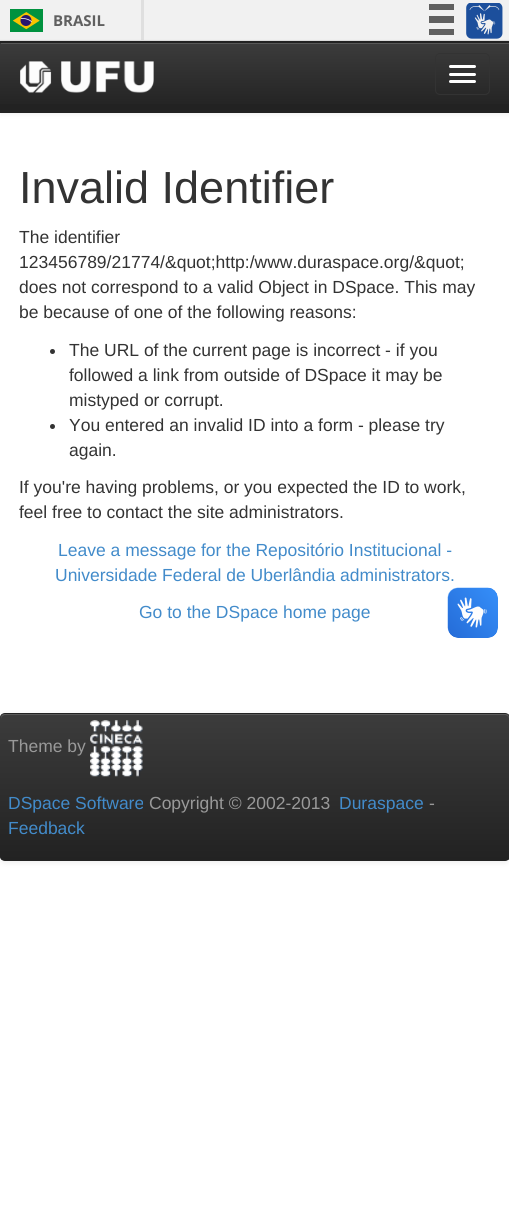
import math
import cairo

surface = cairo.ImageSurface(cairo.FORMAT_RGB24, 509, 1224)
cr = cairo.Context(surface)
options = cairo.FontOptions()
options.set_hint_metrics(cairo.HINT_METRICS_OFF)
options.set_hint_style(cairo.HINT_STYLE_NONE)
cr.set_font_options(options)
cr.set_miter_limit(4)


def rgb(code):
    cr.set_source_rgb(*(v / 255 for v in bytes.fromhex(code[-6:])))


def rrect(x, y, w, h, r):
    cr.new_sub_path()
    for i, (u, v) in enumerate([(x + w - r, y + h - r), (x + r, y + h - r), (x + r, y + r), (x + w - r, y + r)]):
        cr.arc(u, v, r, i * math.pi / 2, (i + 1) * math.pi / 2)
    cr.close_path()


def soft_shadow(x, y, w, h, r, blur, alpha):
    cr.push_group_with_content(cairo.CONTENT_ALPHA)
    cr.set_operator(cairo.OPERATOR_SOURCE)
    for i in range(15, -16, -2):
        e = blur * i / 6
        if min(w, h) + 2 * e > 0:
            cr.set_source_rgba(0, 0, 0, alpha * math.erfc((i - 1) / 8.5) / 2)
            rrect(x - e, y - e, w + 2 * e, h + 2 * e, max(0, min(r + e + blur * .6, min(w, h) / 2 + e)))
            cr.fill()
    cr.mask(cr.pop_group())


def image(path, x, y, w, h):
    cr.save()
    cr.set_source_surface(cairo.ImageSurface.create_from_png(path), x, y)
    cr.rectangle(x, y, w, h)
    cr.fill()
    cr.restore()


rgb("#ffffff")
cr.paint()
for x, y, w, h, color in [
    (0, 0, 509, 40, "#f1f1f1"),
    (0, 40, 509, 1, "#dfdfdf"),
    (141, 0, 3, 40, "#dfdfdf"),
]:
    rgb(color)
    cr.rectangle(x, y, w, h)
    cr.fill()
image("img/1.png", 10, 9, 33, 23)
for x, y, w, h, color in [
    (429, 4, 25, 6, "#606060"),
    (429, 16, 25, 7, "#606060"),
    (429, 29, 25, 6, "#606060"),
]:
    rgb(color)
    cr.rectangle(x, y, w, h)
    cr.fill()
image("img/2.png", 466, 3, 37, 36)
rgb("#000000")
soft_shadow(0, 43, 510, 71, 0, 3, 0.07)
rgb("#222222")
cr.rectangle(0, 41, 509, 72)
cr.fill()
gradient = cairo.LinearGradient(255, 42, 255, 111)
gradient.add_color_stop_rgba(0, 0.235, 0.235, 0.235, 1)
gradient.add_color_stop_rgba(1, 0.133, 0.133, 0.133, 1)
cr.set_source(gradient)
cr.rectangle(0, 43, 509, 61)
cr.fill()
rgb("#585858")
cr.rectangle(1, 43, 508, 1)
cr.fill()
image("img/3.png", 20, 61, 134, 32)
rrect(435.5, 53.5, 54, 41, 4.5)
rgb("#333333")
cr.set_line_width(1)
cr.stroke()
rgb("#ffffff")
rrect(449, 65, 27, 3, 1.5)
cr.fill()
rrect(449, 73, 27, 3, 1.5)
cr.fill()
rrect(449, 80, 27, 3, 1.5)
cr.fill()
rgb("#333333")
cr.arc(52.5, 351.5, 2.5, 0, 2 * math.pi)
cr.fill()
cr.arc(52.5, 426.5, 2.5, 0, 2 * math.pi)
cr.fill()
image("img/4.png", 447, 587, 51, 51)
image("img/5.png", 448, 588, 50, 50)
rgb("#000000")
soft_shadow(0, 714, 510, 149, 5, 3, 0.07)
rgb("#222222")
rrect(0, 713, 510, 148, 5)
cr.fill()
cr.save()
rrect(0, 713, 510, 148, 5)
cr.clip()
gradient = cairo.LinearGradient(255, 714, 255, 860)
gradient.add_color_stop_rgba(0, 0.235, 0.235, 0.235, 1)
gradient.add_color_stop_rgba(1, 0.133, 0.133, 0.133, 1)
cr.set_source(gradient)
cr.rectangle(0, 714, 509, 146)
cr.fill()
cr.restore()
rgb("#595959")
cr.new_path()
cr.move_to(5, 715)
cr.line_to(505, 715)
cr.curve_to(507, 715, 509, 717, 509, 719)
cr.line_to(509, 718)
cr.curve_to(509, 716, 507, 714, 505, 714)
cr.line_to(5, 714)
cr.curve_to(3, 714, 1, 716, 1, 718)
cr.line_to(1, 719)
cr.curve_to(1, 717, 3, 715, 5, 715)
cr.close_path()
cr.fill()
image("img/6.png", 90, 720, 53, 57)
cr.select_font_face("Open Sans", cairo.FONT_SLANT_NORMAL, cairo.FONT_WEIGHT_BOLD)
cr.set_font_size(15)
rgb("#606060")
cr.move_to(53, 26)
cr.show_text("BRASIL")
cr.select_font_face("Liberation Sans")
cr.set_font_size(45)
rgb("#333333")
cr.move_to(19, 203)
cr.show_text("Invalid Identifier")
cr.set_font_size(17.5)
for x, y, s in [
    (19, 243, "The identifier"),
    (19, 268, "123456789/21774/&quot;http:/www.duraspace.org/&quot;"),
    (19, 293, "does not correspond to a valid Object in DSpace. This may"),
    (19, 318, "be because of one of the following reasons:"),
    (69, 356, "The URL of the current page is incorrect - if you"),
    (69, 381, "followed a link from outside of DSpace it may be"),
    (69, 406, "mistyped or corrupt."),
    (69, 431, "You entered an invalid ID into a form - please try"),
    (69, 456, "again."),
    (19, 493, "If you're having problems, or you expected the ID to work,"),
    (19, 518, "feel free to contact the site administrators."),
]:
    cr.move_to(x, y)
    cr.show_text(s)
rgb("#428bca")
for x, y, s in [
    (58, 556, "Leave a message for the Repositório Institucional -"),
    (55, 581, "Universidade Federal de Uberlândia administrators."),
    (139, 618, "Go to the DSpace home page"),
]:
    cr.move_to(x, y)
    cr.show_text(s)
rgb("#999999")
cr.move_to(8, 752)
cr.show_text("Theme by")
rgb("#428bca")
cr.move_to(8, 809)
cr.show_text("DSpace Software")
rgb("#999999")
cr.move_to(149, 809)
cr.show_text("Copyright © 2002-2013")
rgb("#428bca")
cr.move_to(339, 809)
cr.show_text("Duraspace")
rgb("#999999")
cr.move_to(429, 809)
cr.show_text("-")
rgb("#428bca")
cr.move_to(8, 834)
cr.show_text("Feedback")
surface.write_to_png("page.png")
